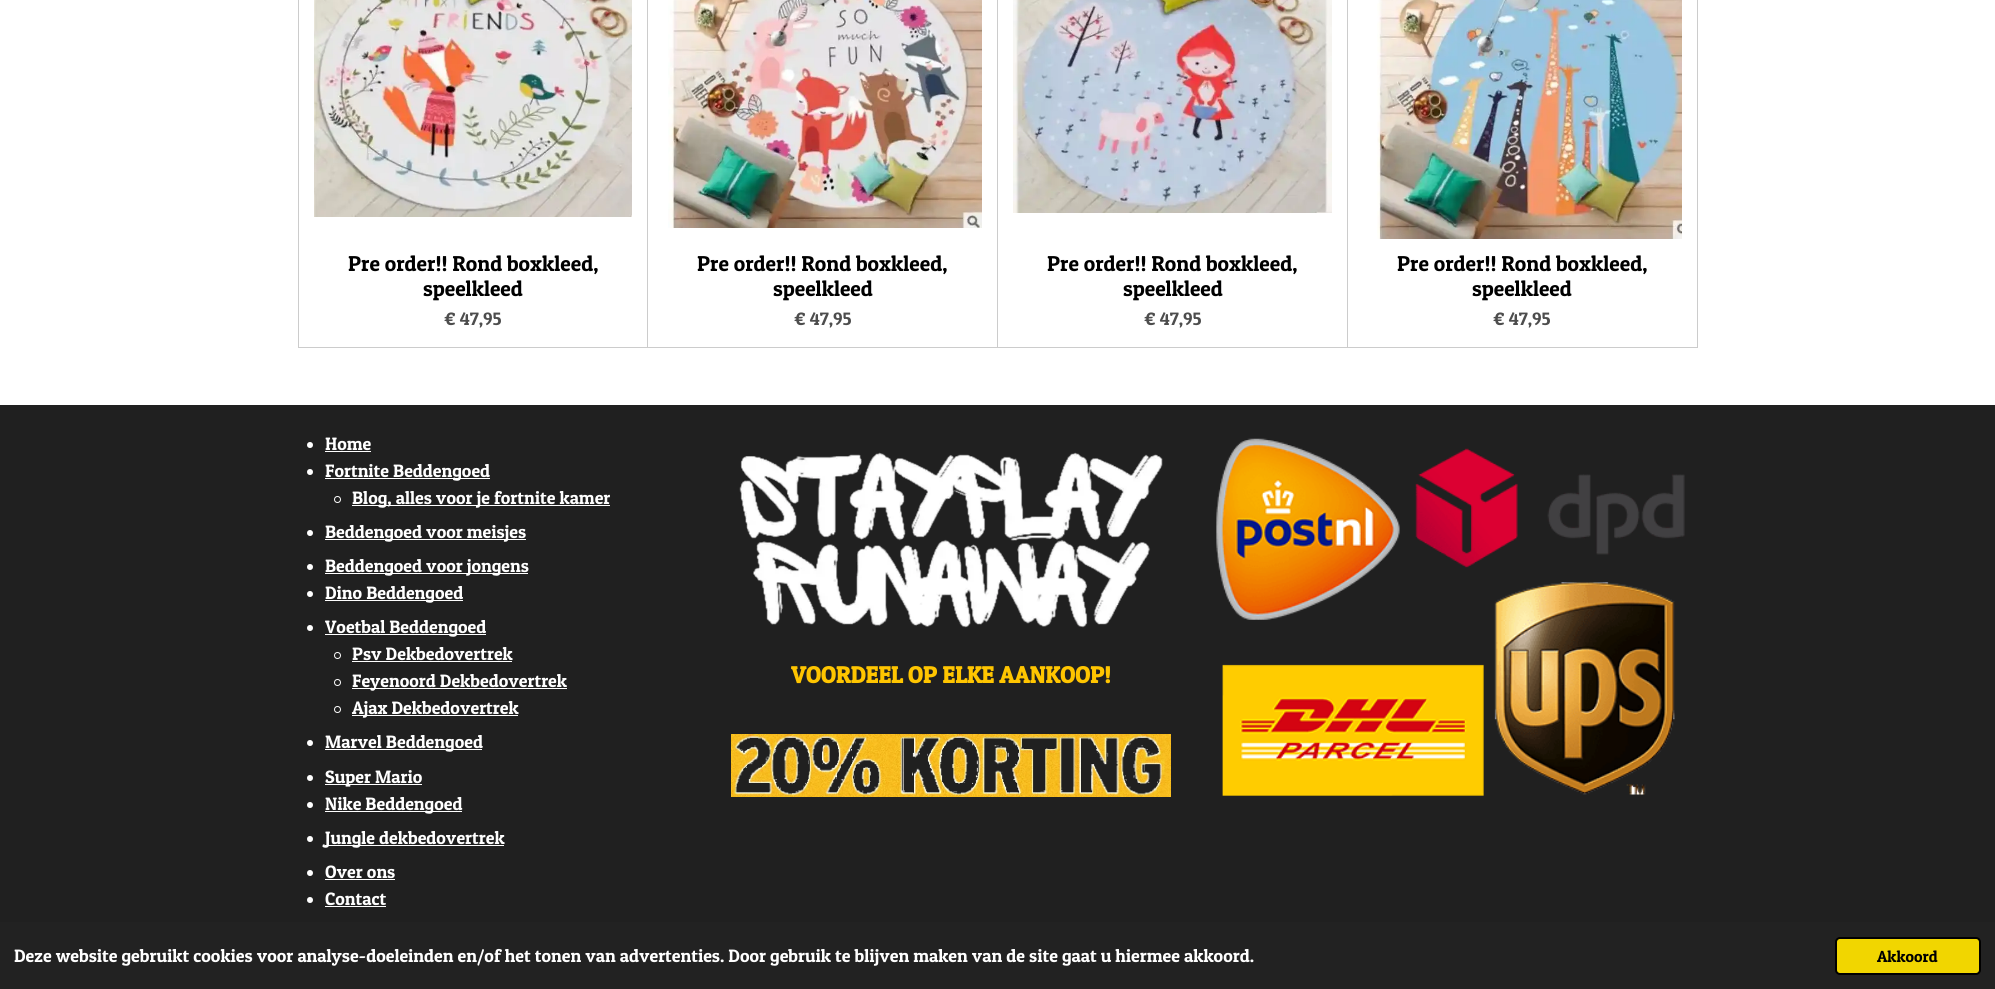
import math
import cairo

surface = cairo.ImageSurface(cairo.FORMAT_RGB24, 1995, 989)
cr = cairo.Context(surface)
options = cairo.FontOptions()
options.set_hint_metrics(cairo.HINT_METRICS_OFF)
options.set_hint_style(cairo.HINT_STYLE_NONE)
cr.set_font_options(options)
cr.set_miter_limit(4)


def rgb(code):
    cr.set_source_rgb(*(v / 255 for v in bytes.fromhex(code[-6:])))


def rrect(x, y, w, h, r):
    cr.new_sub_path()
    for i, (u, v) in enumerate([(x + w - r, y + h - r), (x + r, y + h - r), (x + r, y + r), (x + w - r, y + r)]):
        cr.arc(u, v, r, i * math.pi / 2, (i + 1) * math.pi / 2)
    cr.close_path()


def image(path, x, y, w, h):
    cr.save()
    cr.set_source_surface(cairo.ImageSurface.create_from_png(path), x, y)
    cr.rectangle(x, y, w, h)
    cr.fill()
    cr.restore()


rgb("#ffffff")
cr.paint()
cr.rectangle(298.5, -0.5, 349, 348)
rgb("#cccccc")
cr.set_line_width(1)
cr.stroke()
image("img/1.png", 314, 0, 318, 217)
cr.rectangle(647.5, -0.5, 350, 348)
cr.stroke()
image("img/2.png", 668, 0, 314, 228)
cr.rectangle(997.5, -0.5, 350, 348)
cr.stroke()
image("img/3.png", 1013, 0, 319, 213)
cr.rectangle(1347.5, -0.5, 350, 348)
cr.stroke()
image("img/4.png", 1377, 0, 305, 239)
rgb("#202020")
cr.rectangle(0, 405, 1995, 517)
cr.fill()
rgb("#ffffff")
cr.arc(310, 445, 3, 0, 2 * math.pi)
cr.fill()
cr.rectangle(325, 451, 46, 1)
cr.fill()
cr.arc(310, 472, 3, 0, 2 * math.pi)
cr.fill()
cr.rectangle(325, 478, 165, 1)
cr.fill()
cr.arc(337.5, 499.5, 3, 0, 2 * math.pi)
cr.stroke()
cr.rectangle(352, 505, 258, 1)
cr.fill()
cr.arc(310, 533, 3, 0, 2 * math.pi)
cr.fill()
cr.rectangle(325, 539, 201, 1)
cr.fill()
cr.arc(310, 567, 3, 0, 2 * math.pi)
cr.fill()
cr.rectangle(325, 573, 203, 1)
cr.fill()
cr.arc(310, 594, 3, 0, 2 * math.pi)
cr.fill()
cr.rectangle(325, 600, 138, 1)
cr.fill()
cr.arc(310, 628, 3, 0, 2 * math.pi)
cr.fill()
cr.rectangle(325, 634, 161, 1)
cr.fill()
cr.arc(337.5, 655.5, 3, 0, 2 * math.pi)
cr.stroke()
cr.rectangle(352, 661, 160, 1)
cr.fill()
cr.arc(337.5, 682.5, 3, 0, 2 * math.pi)
cr.stroke()
cr.rectangle(352, 688, 215, 1)
cr.fill()
cr.arc(337.5, 709.5, 3, 0, 2 * math.pi)
cr.stroke()
cr.rectangle(352, 715, 166, 1)
cr.fill()
cr.arc(310, 743, 3, 0, 2 * math.pi)
cr.fill()
cr.rectangle(325, 749, 157, 1)
cr.fill()
cr.arc(310, 778, 3, 0, 2 * math.pi)
cr.fill()
cr.rectangle(325, 784, 97, 1)
cr.fill()
cr.arc(310, 805, 3, 0, 2 * math.pi)
cr.fill()
cr.rectangle(325, 811, 137, 1)
cr.fill()
cr.arc(310, 839, 3, 0, 2 * math.pi)
cr.fill()
cr.rectangle(325, 845, 179, 1)
cr.fill()
cr.arc(310, 873, 3, 0, 2 * math.pi)
cr.fill()
cr.rectangle(325, 879, 70, 1)
cr.fill()
cr.arc(310, 900, 3, 0, 2 * math.pi)
cr.fill()
cr.rectangle(325, 906, 61, 1)
cr.fill()
image("img/5.png", 739, 452, 424, 176)
image("img/6.png", 731, 734, 440, 63)
image("img/7.png", 1216, 438, 469, 358)
rgb("#222222")
cr.rectangle(0, 922, 1995, 67)
cr.fill()
rgb("#f1d600")
rrect(1836, 938, 144, 36, 4)
cr.fill_preserve()
rgb("#000000")
cr.set_line_width(2)
cr.stroke()
cr.select_font_face("Patua One")
cr.set_font_size(21.6)
cr.move_to(348, 271)
cr.show_text("Pre order!! Rond boxkleed,")
cr.move_to(423, 296)
cr.show_text("speelkleed")
cr.set_font_size(18)
rgb("#4d4d4d")
cr.move_to(444, 325)
cr.show_text("€ 47,95")
cr.set_font_size(21.6)
rgb("#000000")
cr.move_to(697, 271)
cr.show_text("Pre order!! Rond boxkleed,")
cr.move_to(773, 296)
cr.show_text("speelkleed")
cr.set_font_size(18)
rgb("#4d4d4d")
cr.move_to(794, 325)
cr.show_text("€ 47,95")
cr.set_font_size(21.6)
rgb("#000000")
cr.move_to(1047, 271)
cr.show_text("Pre order!! Rond boxkleed,")
cr.move_to(1123, 296)
cr.show_text("speelkleed")
cr.set_font_size(18)
rgb("#4d4d4d")
cr.move_to(1144, 325)
cr.show_text("€ 47,95")
cr.set_font_size(21.6)
rgb("#000000")
cr.move_to(1397, 271)
cr.show_text("Pre order!! Rond boxkleed,")
cr.move_to(1472, 296)
cr.show_text("speelkleed")
cr.set_font_size(18)
rgb("#4d4d4d")
cr.move_to(1493, 325)
cr.show_text("€ 47,95")
rgb("#ffffff")
for x, y, s in [
    (325, 450, "Home"),
    (325, 477, "Fortnite Beddengoed"),
    (352, 504, "Blog, alles voor je fortnite kamer"),
    (325, 538, "Beddengoed voor meisjes"),
    (325, 572, "Beddengoed voor jongens"),
    (325, 599, "Dino Beddengoed"),
    (325, 633, "Voetbal Beddengoed"),
    (352, 660, "Psv Dekbedovertrek"),
    (352, 687, "Feyenoord Dekbedovertrek"),
    (352, 714, "Ajax Dekbedovertrek"),
    (325, 748, "Marvel Beddengoed"),
    (325, 783, "Super Mario"),
    (325, 810, "Nike Beddengoed"),
    (325, 844, "Jungle dekbedovertrek"),
    (325, 878, "Over ons"),
    (325, 905, "Contact"),
]:
    cr.move_to(x, y)
    cr.show_text(s)
cr.select_font_face("Patua One", cairo.FONT_SLANT_NORMAL, cairo.FONT_WEIGHT_BOLD)
cr.set_font_size(23.4)
rgb("#ffc500")
cr.move_to(791, 683)
cr.show_text("VOORDEEL OP ELKE AANKOOP!")
cr.select_font_face("Patua One")
cr.set_font_size(18)
rgb("#ffffff")
cr.move_to(14, 962)
cr.show_text("Deze website gebruikt cookies voor analyse-doeleinden en/of het tonen van advertenties. Door gebruik te blijven maken van de site gaat u hiermee akkoord.")
cr.set_font_size(16)
rgb("#000000")
cr.move_to(1877, 962)
cr.show_text("Akkoord")
surface.write_to_png("page.png")
